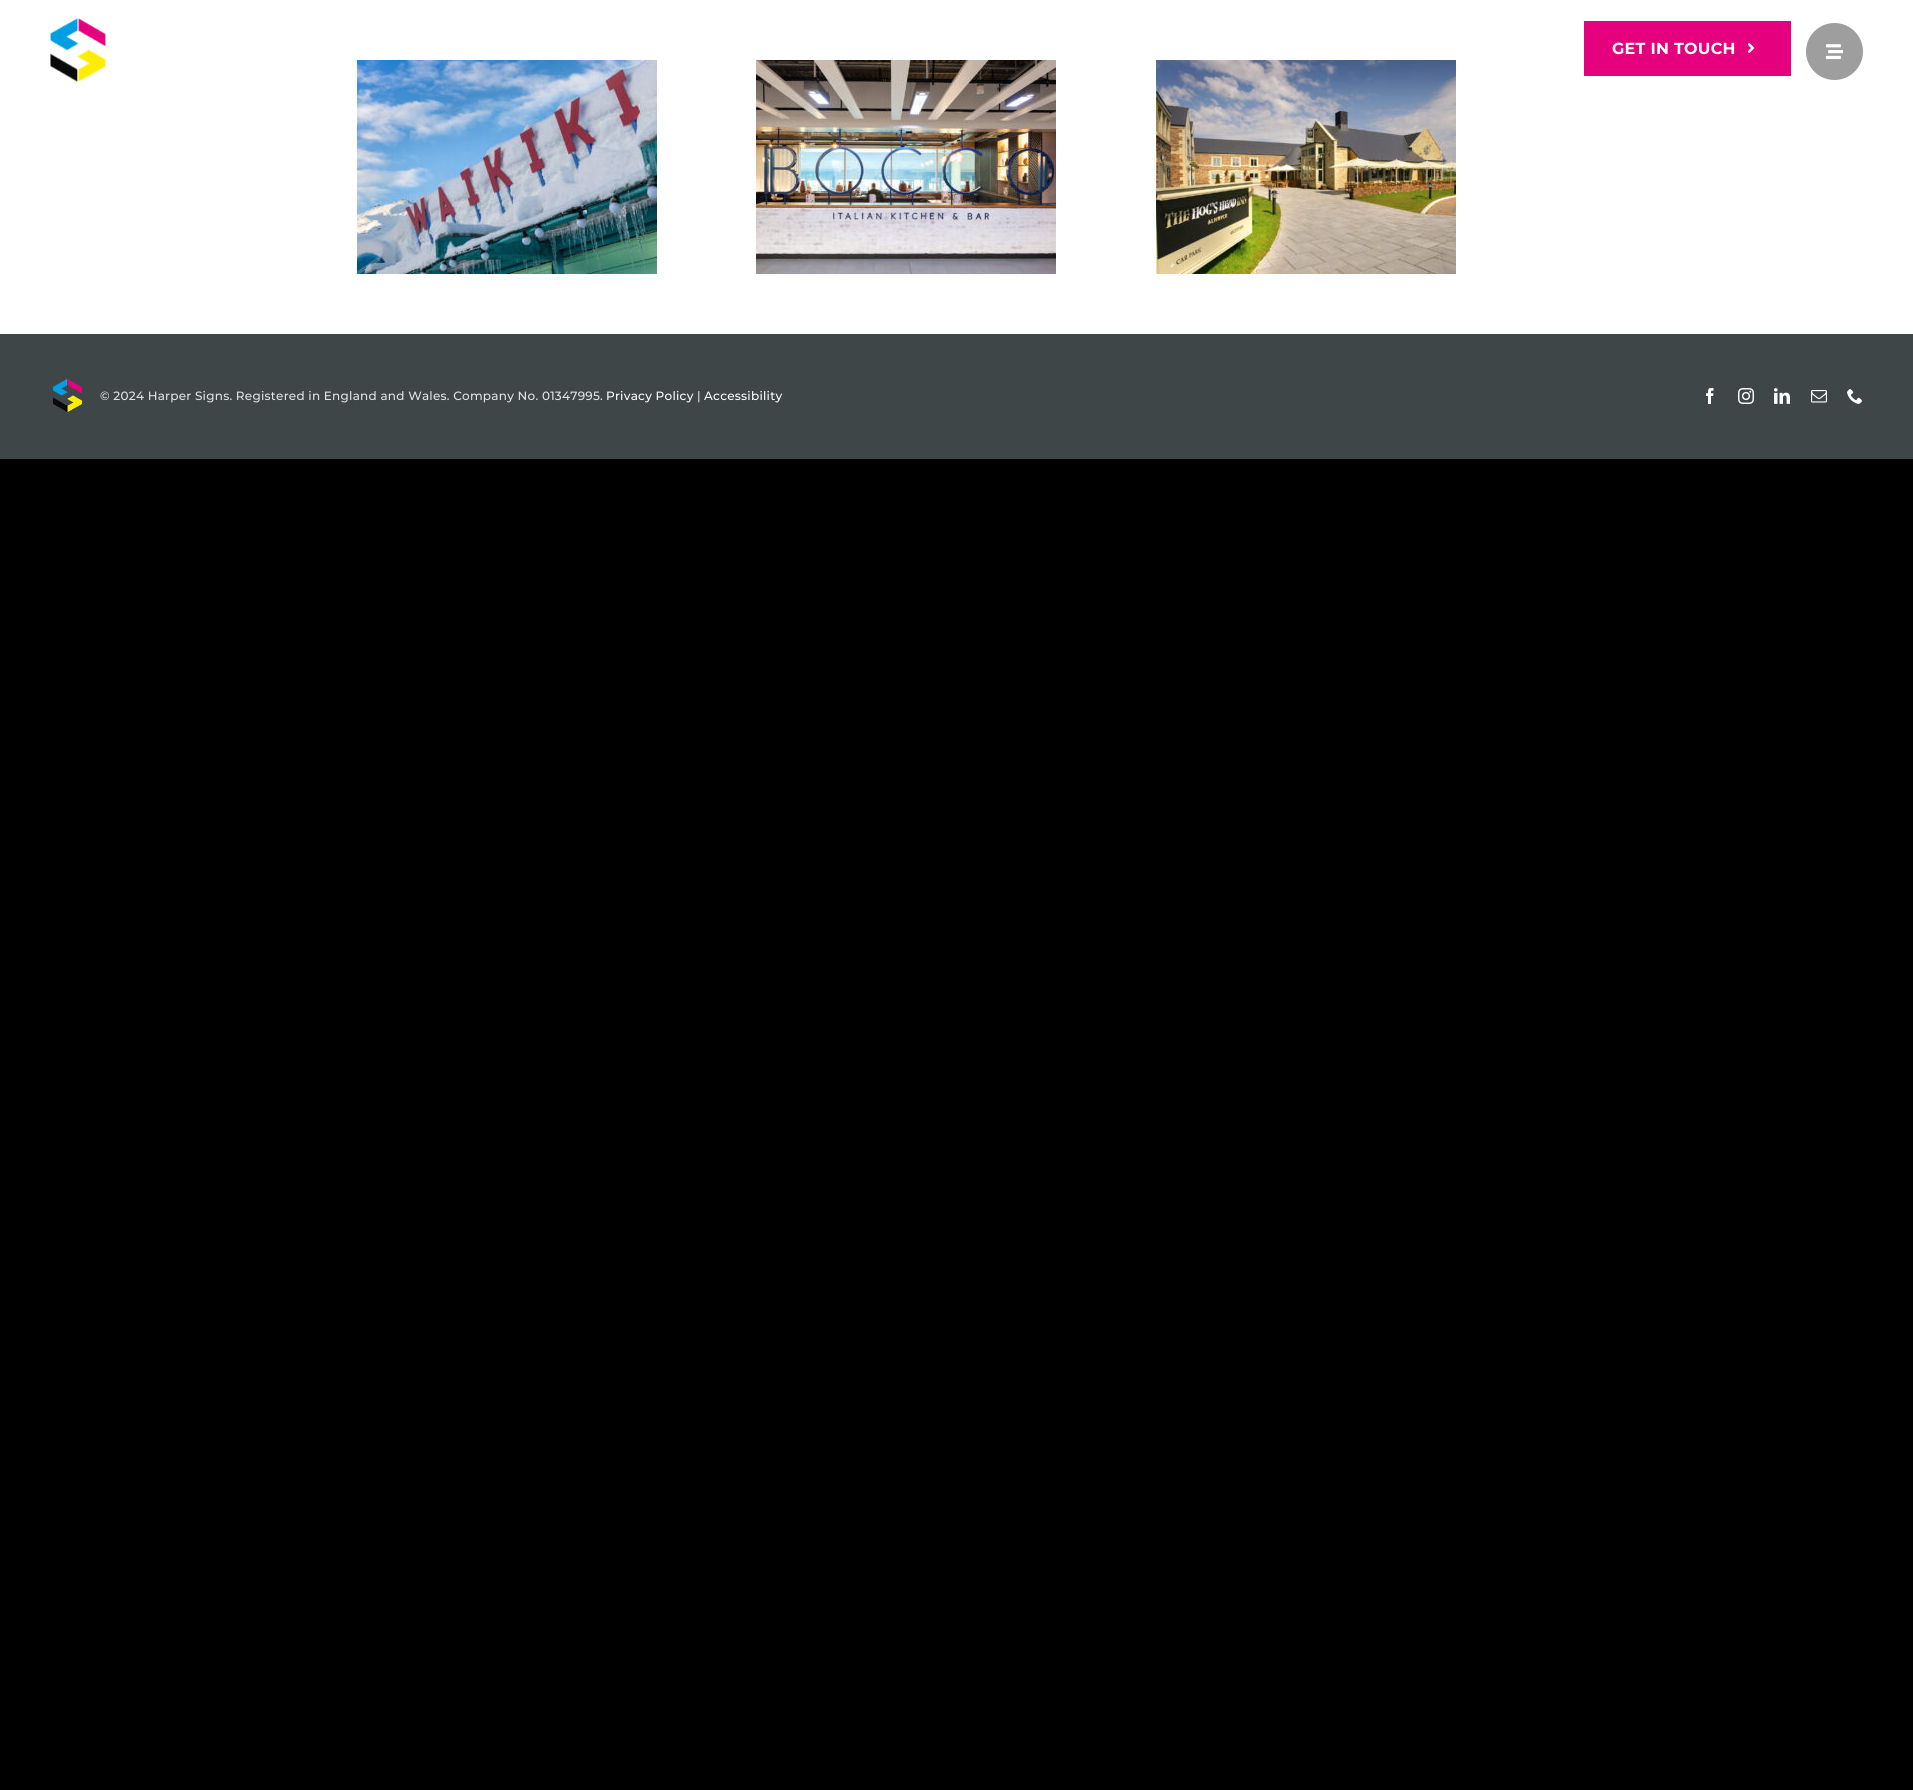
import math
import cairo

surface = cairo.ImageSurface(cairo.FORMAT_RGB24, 1913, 1790)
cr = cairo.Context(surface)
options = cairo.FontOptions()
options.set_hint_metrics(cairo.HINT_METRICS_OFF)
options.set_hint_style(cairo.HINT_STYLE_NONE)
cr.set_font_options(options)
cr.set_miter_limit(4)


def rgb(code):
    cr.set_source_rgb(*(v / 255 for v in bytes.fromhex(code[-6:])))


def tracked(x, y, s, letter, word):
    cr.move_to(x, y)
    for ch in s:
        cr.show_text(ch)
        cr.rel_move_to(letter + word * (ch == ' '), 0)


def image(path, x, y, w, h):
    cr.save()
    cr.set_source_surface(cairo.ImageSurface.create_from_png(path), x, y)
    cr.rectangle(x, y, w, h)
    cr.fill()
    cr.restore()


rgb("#000000")
cr.paint()
rgb("#ffffff")
cr.rectangle(0, 0, 1913, 334)
cr.fill()
image("img/1.png", 50, 18, 56, 64)
rgb("#e5007d")
cr.rectangle(1584, 21, 207, 55)
cr.fill()
image("img/2.png", 1747, 43, 8, 10)
rgb("#9e9e9e")
cr.arc(1834.5, 51.5, 28.5, 0, 2 * math.pi)
cr.fill()
image("img/3.png", 1826, 44, 17, 16)
image("img/4.png", 357, 60, 300, 214)
image("img/5.png", 756, 60, 300, 214)
image("img/6.png", 1156, 60, 300, 214)
rgb("#3f4648")
cr.rectangle(0, 334, 1913, 125)
cr.fill()
image("img/7.png", 52, 378, 31, 34)
image("img/8.png", 1706, 388, 8, 16)
image("img/9.png", 1738, 388, 16, 16)
image("img/10.png", 1774, 388, 16, 16)
image("img/11.png", 1811, 390, 16, 13)
image("img/12.png", 1847, 389, 15, 15)
cr.select_font_face("Montserrat", cairo.FONT_SLANT_NORMAL, cairo.FONT_WEIGHT_BOLD)
cr.set_font_size(16)
rgb("#ffffff")
tracked(1612, 54, "GET IN TOUCH", 0.25, 0)
cr.select_font_face("Montserrat Medium")
cr.set_font_size(12)
rgb("#e2e3e4")
tracked(100, 400, "© 2024 Harper Signs. Registered in England and Wales. Company No. 01347995.", 0.25, 0)
rgb("#ffffff")
tracked(606, 400, "Privacy Policy", 0.25, 0)
rgb("#e2e3e4")
tracked(697, 400, "|", 0.25, 0)
rgb("#ffffff")
tracked(704, 400, "Accessibility", 0.25, 0)
surface.write_to_png("page.png")
